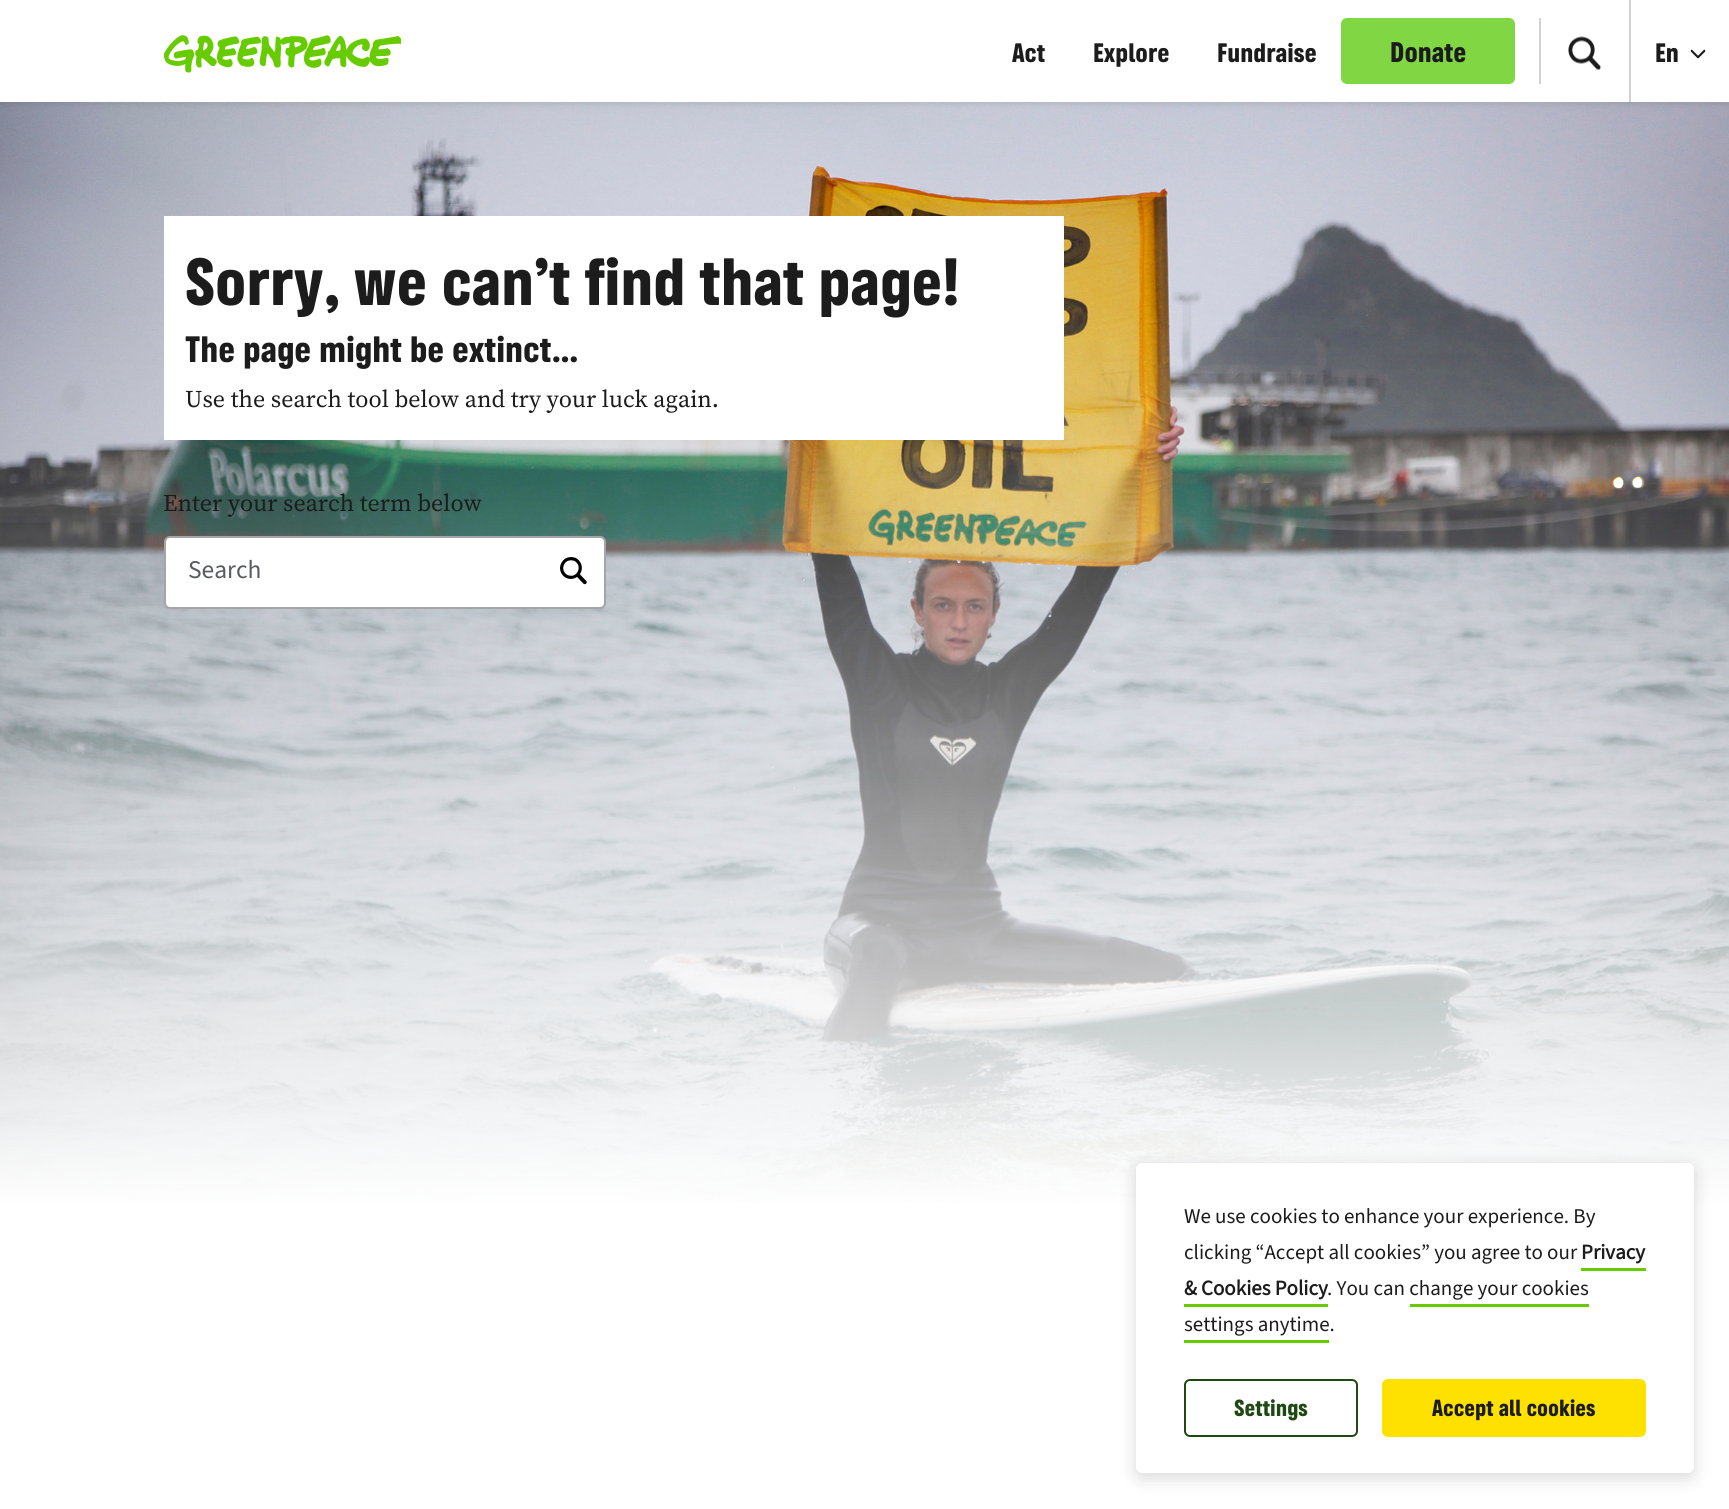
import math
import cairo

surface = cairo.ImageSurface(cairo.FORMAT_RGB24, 1729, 1509)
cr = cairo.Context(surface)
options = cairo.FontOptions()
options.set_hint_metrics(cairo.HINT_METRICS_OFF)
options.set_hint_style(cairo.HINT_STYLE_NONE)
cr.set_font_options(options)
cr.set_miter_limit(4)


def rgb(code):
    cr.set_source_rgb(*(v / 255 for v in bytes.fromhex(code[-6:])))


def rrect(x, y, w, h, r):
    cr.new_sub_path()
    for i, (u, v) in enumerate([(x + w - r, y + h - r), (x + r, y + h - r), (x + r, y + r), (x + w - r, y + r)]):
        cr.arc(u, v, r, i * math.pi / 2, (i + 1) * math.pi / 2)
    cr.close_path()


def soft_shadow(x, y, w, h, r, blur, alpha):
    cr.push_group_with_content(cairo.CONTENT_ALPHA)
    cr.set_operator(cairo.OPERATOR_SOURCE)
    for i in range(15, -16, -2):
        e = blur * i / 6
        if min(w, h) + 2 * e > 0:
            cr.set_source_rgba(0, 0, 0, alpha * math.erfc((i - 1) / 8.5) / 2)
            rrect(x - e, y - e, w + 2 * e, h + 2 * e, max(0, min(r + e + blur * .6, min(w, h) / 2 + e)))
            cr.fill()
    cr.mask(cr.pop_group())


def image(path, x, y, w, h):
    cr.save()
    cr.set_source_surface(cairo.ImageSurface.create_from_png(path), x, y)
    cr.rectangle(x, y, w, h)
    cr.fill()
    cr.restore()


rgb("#ffffff")
cr.paint()
image("img/4.png", 0, 102, 1729, 1101)
rgb("#000000")
soft_shadow(0, 3, 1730, 102, 0, 3, 0.08)
rgb("#ffffff")
cr.rectangle(0, 0, 1729, 102)
cr.fill()
image("img/1.png", 164, 35, 237, 38)
rgb("#80d643")
rrect(1341, 18, 174, 66, 6)
cr.fill()
rgb("#d1d2d3")
cr.rectangle(1539, 18, 2, 66)
cr.fill()
image("img/2.png", 1568, 36, 33, 34)
cr.rectangle(1629, 0, 2, 102)
cr.fill()
image("img/3.png", 1690, 49, 16, 10)
rgb("#ffffff")
cr.rectangle(164, 216, 900, 224)
cr.fill()
rrect(165, 537, 440, 71, 5)
cr.fill_preserve()
rgb("#a3a5a7")
cr.stroke()
image("img/5.png", 560, 557, 27, 28)
rgb("#000000")
soft_shadow(1136, 1167, 558, 311, 6, 9, 0.15)
rgb("#ffffff")
rrect(1136, 1163, 558, 310, 6)
cr.fill()
for x, y, w, h, color in [
    (1581, 1268, 65, 3, "#66cc00"),
    (1184, 1304, 144, 3, "#66cc00"),
    (1410, 1304, 179, 3, "#66cc00"),
    (1184, 1340, 145, 3, "#66cc00"),
]:
    rgb(color)
    cr.rectangle(x, y, w, h)
    cr.fill()
rrect(1185, 1380, 172, 56, 5)
rgb("#1f4912")
cr.stroke()
rgb("#ffe100")
rrect(1382, 1379, 264, 58, 6)
cr.fill()
cr.select_font_face("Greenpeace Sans", cairo.FONT_SLANT_NORMAL, cairo.FONT_WEIGHT_BOLD)
cr.set_font_size(24)
rgb("#1c1c1c")
for x, y, s in [
    (1012, 62, "Act"),
    (1093, 62, "Explore"),
    (1217, 62, "Fundraise"),
]:
    cr.move_to(x, y)
    cr.show_text(s)
cr.set_font_size(25.5)
cr.move_to(1390, 62)
cr.show_text("Donate")
cr.set_font_size(24)
cr.move_to(1655, 62)
cr.show_text("En")
cr.set_font_size(60)
cr.move_to(185, 305)
cr.show_text("Sorry, we can't find that page!")
cr.set_font_size(33)
cr.move_to(185, 362)
cr.show_text("The page might be extinct...")
cr.select_font_face("Source Serif 4")
cr.set_font_size(24)
cr.move_to(185, 407)
cr.show_text("Use the search tool below and try your luck again.")
cr.move_to(163, 511)
cr.show_text("Enter your search term below")
cr.select_font_face("Source Sans 3")
cr.set_font_size(25.5)
rgb("#595c5f")
cr.move_to(188, 578)
cr.show_text("Search")
cr.set_font_size(21)
rgb("#1c1c1c")
cr.move_to(1184, 1223)
cr.show_text("We use cookies to enhance your experience. By")
cr.move_to(1184, 1259)
cr.show_text("clicking “Accept all cookies” you agree to our")
cr.select_font_face("Source Sans 3", cairo.FONT_SLANT_NORMAL, cairo.FONT_WEIGHT_BOLD)
cr.move_to(1581, 1259)
cr.show_text("Privacy")
cr.move_to(1184, 1295)
cr.show_text("& Cookies Policy")
cr.select_font_face("Source Sans 3")
cr.move_to(1327, 1295)
cr.show_text(". You can change your cookies")
cr.move_to(1184, 1331)
cr.show_text("settings anytime.")
cr.select_font_face("Greenpeace Sans", cairo.FONT_SLANT_NORMAL, cairo.FONT_WEIGHT_BOLD)
rgb("#1f4912")
cr.move_to(1234, 1416)
cr.show_text("Settings")
rgb("#1c1c1c")
cr.move_to(1432, 1416)
cr.show_text("Accept all cookies")
surface.write_to_png("page.png")
